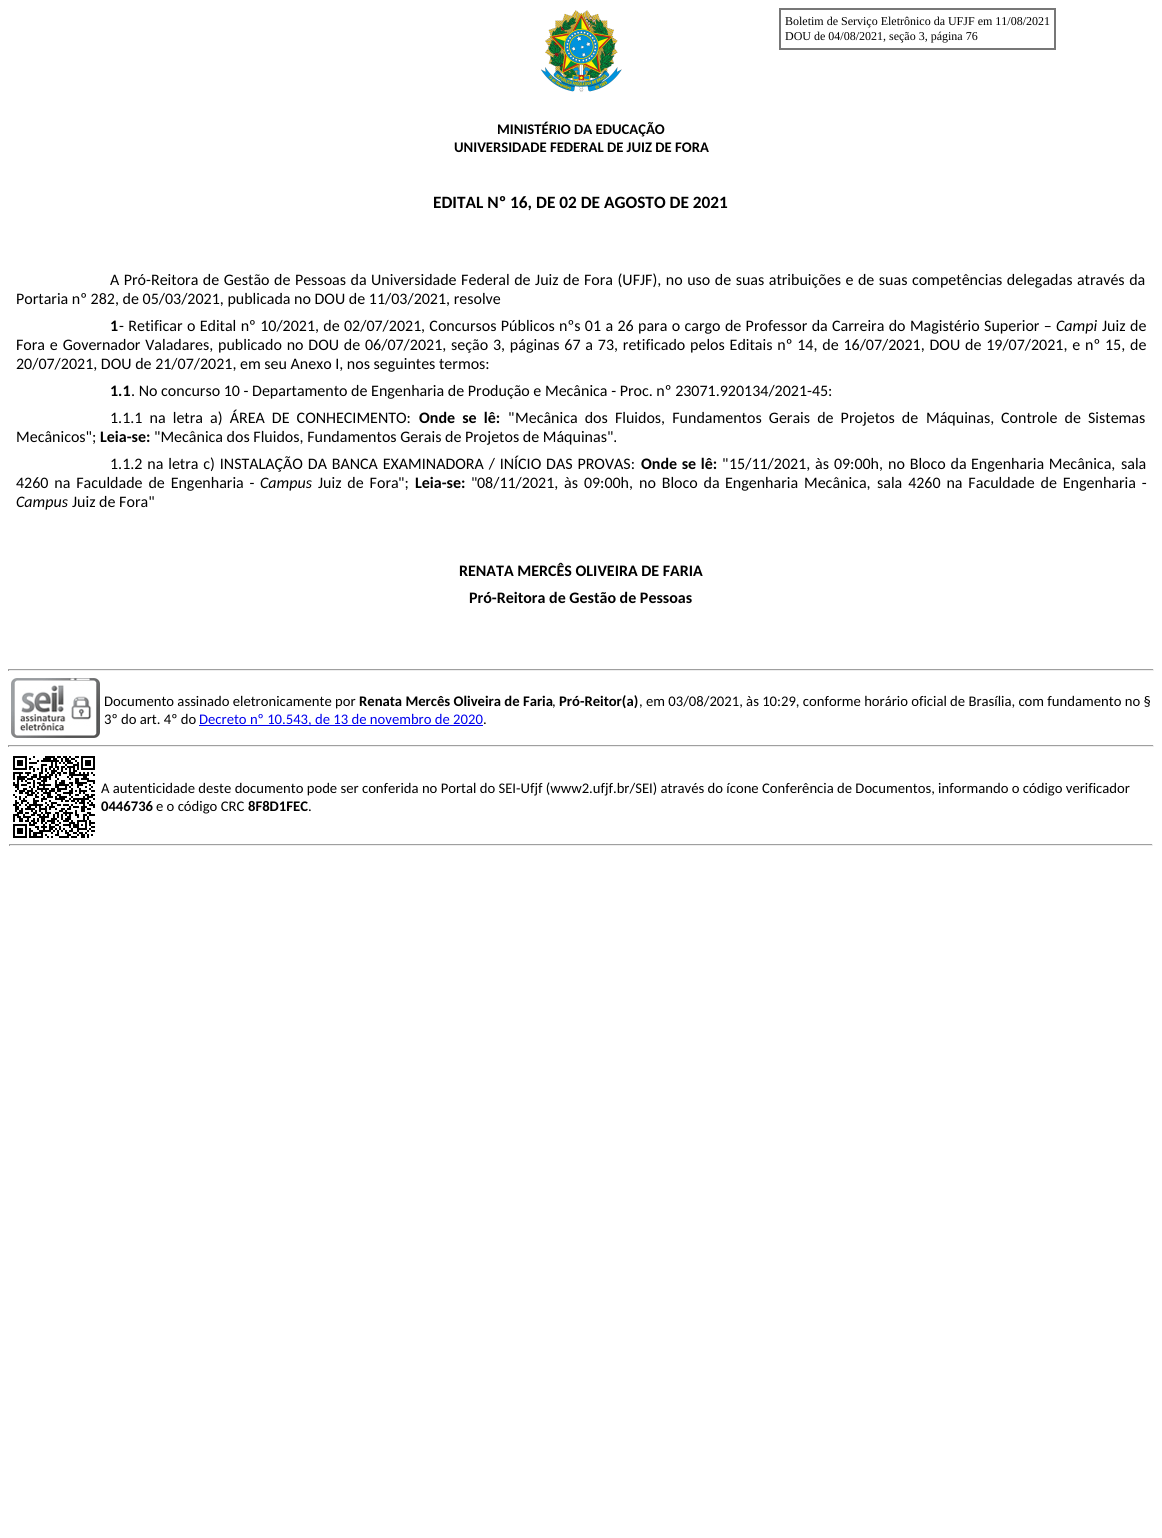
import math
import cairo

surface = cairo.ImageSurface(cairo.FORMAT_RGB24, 1162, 1538)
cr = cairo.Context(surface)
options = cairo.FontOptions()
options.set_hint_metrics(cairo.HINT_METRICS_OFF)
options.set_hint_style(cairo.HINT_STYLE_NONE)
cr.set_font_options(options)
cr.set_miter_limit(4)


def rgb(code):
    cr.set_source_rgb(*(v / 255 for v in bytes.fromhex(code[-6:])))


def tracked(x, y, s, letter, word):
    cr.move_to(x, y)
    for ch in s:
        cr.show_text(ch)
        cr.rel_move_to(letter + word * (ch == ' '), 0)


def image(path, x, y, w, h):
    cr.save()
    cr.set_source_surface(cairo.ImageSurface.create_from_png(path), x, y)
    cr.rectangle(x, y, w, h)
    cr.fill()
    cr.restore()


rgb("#ffffff")
cr.paint()
image("img/1.png", 541, 10, 81, 82)
cr.rectangle(780, 9, 275, 40)
rgb("#777777")
cr.stroke()
for x, y, w, h, color in [
    (8, 669, 1146, 1, "#9f9f9f"),
    (1153, 669, 1, 2, "#eeeeee"),
    (8, 670, 1146, 1, "#eeeeee"),
    (8, 669, 1, 2, "#9f9f9f"),
]:
    rgb(color)
    cr.rectangle(x, y, w, h)
    cr.fill()
image("img/2.png", 11, 678, 89, 60)
for x, y, w, h, color in [
    (199, 725, 284, 1, "#0000ee"),
    (8, 745, 1146, 1, "#9f9f9f"),
    (1153, 745, 1, 2, "#eeeeee"),
    (8, 746, 1146, 1, "#eeeeee"),
    (8, 745, 1, 2, "#9f9f9f"),
]:
    rgb(color)
    cr.rectangle(x, y, w, h)
    cr.fill()
image("img/3.png", 13, 756, 82, 82)
for x, y, w, h, color in [
    (9, 844, 1144, 1, "#9f9f9f"),
    (1152, 844, 1, 2, "#eeeeee"),
    (9, 845, 1144, 1, "#eeeeee"),
    (9, 844, 1, 2, "#9f9f9f"),
]:
    rgb(color)
    cr.rectangle(x, y, w, h)
    cr.fill()
cr.select_font_face("Liberation Serif")
cr.set_font_size(12)
rgb("#000000")
cr.move_to(785, 25)
cr.show_text("Boletim de Serviço Eletrônico da UFJF em 11/08/2021")
cr.move_to(785, 40)
cr.show_text("DOU de 04/08/2021, seção 3, página 76")
cr.select_font_face("Carlito", cairo.FONT_SLANT_NORMAL, cairo.FONT_WEIGHT_BOLD)
cr.set_font_size(14.67)
cr.move_to(497, 134)
cr.show_text("MINISTÉRIO DA EDUCAÇÃO")
cr.move_to(454, 152)
cr.show_text("UNIVERSIDADE FEDERAL DE JUIZ DE FORA")
cr.set_font_size(17.3)
cr.move_to(433, 208)
cr.show_text("EDITAL Nº 16, DE 02 DE AGOSTO DE 2021")
cr.select_font_face("Carlito")
cr.set_font_size(16)
tracked(110, 285, "A Pró-Reitora de Gestão de Pessoas da Universidade Federal de Juiz de Fora (UFJF), no uso de suas atribuições e de suas competências delegadas através da", 0, 0.9)
cr.move_to(16, 304)
cr.show_text("Portaria nº 282, de 05/03/2021, publicada no DOU de 11/03/2021, resolve")
cr.select_font_face("Carlito", cairo.FONT_SLANT_NORMAL, cairo.FONT_WEIGHT_BOLD)
cr.move_to(110, 331)
cr.show_text("1")
cr.select_font_face("Carlito")
tracked(119, 331, "- Retificar o Edital nº 10/2021, de", 0, 0.75)
cr.move_to(344, 331)
cr.show_text("02/07/2021")
tracked(421, 331, ", Concursos Públicos nºs 01 a 26 para o cargo de Professor da Carreira do Magistério Superior –", 0, 0.75)
cr.select_font_face("Carlito", cairo.FONT_SLANT_ITALIC)
cr.move_to(1056, 331)
cr.show_text("Campi")
cr.select_font_face("Carlito")
tracked(1102, 331, "Juiz de", 0, 1)
tracked(16, 350, "Fora e Governador Valadares, publicado no DOU de 06/07/2021, seção 3, páginas 67 a 73, retificado pelos Editais nº 14, de 16/07/2021, DOU de 19/07/2021, e nº 15, de", 0, 1.2)
cr.move_to(16, 369)
cr.show_text("20/07/2021, DOU de 21/07/2021, em seu Anexo I, nos seguintes termos:")
cr.select_font_face("Carlito", cairo.FONT_SLANT_NORMAL, cairo.FONT_WEIGHT_BOLD)
cr.move_to(110, 396)
cr.show_text("1.1")
cr.select_font_face("Carlito")
cr.move_to(131, 396)
cr.show_text(". No concurso 10 - Departamento de Engenharia de Produção e Mecânica - Proc. nº 23071.920134/2021-45:")
tracked(110, 423, "1.1.1 na letra a) ÁREA DE CONHECIMENTO:", 0, 3.5)
cr.select_font_face("Carlito", cairo.FONT_SLANT_NORMAL, cairo.FONT_WEIGHT_BOLD)
tracked(419, 423, "Onde se lê:", 0, 3.5)
cr.select_font_face("Carlito")
cr.move_to(508, 423)
cr.show_text("\"")
tracked(515, 423, "Mecânica dos Fluidos, Fundamentos Gerais de Projetos de", 0, 3.5)
cr.move_to(926, 423)
cr.show_text("Máquinas,")
tracked(1001, 423, "Controle de Sistemas", 0, 3.5)
cr.move_to(16, 442)
cr.show_text("Mecânicos\";")
cr.select_font_face("Carlito", cairo.FONT_SLANT_NORMAL, cairo.FONT_WEIGHT_BOLD)
cr.move_to(100, 442)
cr.show_text("Leia-se:")
cr.select_font_face("Carlito")
cr.move_to(154, 442)
cr.show_text("\"Mecânica dos Fluidos, Fundamentos Gerais de Projetos de Máquinas\".")
tracked(110, 469, "1.1.2 na letra c) INSTALAÇÃO DA BANCA EXAMINADORA / INÍCIO DAS PROVAS:", 0, 1.25)
cr.select_font_face("Carlito", cairo.FONT_SLANT_NORMAL, cairo.FONT_WEIGHT_BOLD)
tracked(641, 469, "Onde se lê:", 0, 1)
cr.select_font_face("Carlito")
cr.move_to(722, 469)
cr.show_text("\"")
tracked(729, 469, "15/11/2021, às 09:00h,", 0, 1.25)
tracked(888, 469, "no Bloco da", 0, 1.25)
tracked(971, 469, "Engenharia Mecânica,", 0, 1)
cr.move_to(1121, 469)
cr.show_text("sala")
tracked(16, 488, "4260 na Faculdade de Engenharia -", 0, 2.25)
cr.select_font_face("Carlito", cairo.FONT_SLANT_ITALIC)
cr.move_to(260, 488)
cr.show_text("Campus")
cr.select_font_face("Carlito")
tracked(318, 488, "Juiz de Fora", 0, 2.25)
cr.move_to(398, 488)
cr.show_text("\";")
cr.select_font_face("Carlito", cairo.FONT_SLANT_NORMAL, cairo.FONT_WEIGHT_BOLD)
cr.move_to(415, 488)
cr.show_text("Leia-se:")
cr.select_font_face("Carlito")
cr.move_to(471, 488)
cr.show_text("\"")
for x, y, s in [
    (477, 488, "08/11/2021, às 09:00h,"),
    (639, 488, "no Bloco da"),
    (725, 488, "Engenharia Mecânica,"),
    (877, 488, "sala 4260 na Faculdade de Engenharia -"),
]:
    tracked(x, y, s, 0, 2.25)
cr.select_font_face("Carlito", cairo.FONT_SLANT_ITALIC)
cr.move_to(16, 507)
cr.show_text("Campus")
cr.select_font_face("Carlito")
cr.move_to(72, 507)
cr.show_text("Juiz de Fora\"")
cr.select_font_face("Carlito", cairo.FONT_SLANT_NORMAL, cairo.FONT_WEIGHT_BOLD)
cr.move_to(459, 576)
cr.show_text("RENATA MERCÊS OLIVEIRA DE FARIA")
cr.move_to(469, 603)
cr.show_text("Pró-Reitora de Gestão de Pessoas")
cr.select_font_face("Carlito")
cr.set_font_size(14.67)
cr.move_to(104, 706)
cr.show_text("Documento assinado eletronicamente por")
cr.select_font_face("Carlito", cairo.FONT_SLANT_NORMAL, cairo.FONT_WEIGHT_BOLD)
cr.move_to(359, 706)
cr.show_text("Renata Mercês Oliveira de Faria")
cr.select_font_face("Carlito")
cr.move_to(552, 706)
cr.show_text(",")
cr.select_font_face("Carlito", cairo.FONT_SLANT_NORMAL, cairo.FONT_WEIGHT_BOLD)
cr.move_to(559, 706)
cr.show_text("Pró-Reitor(a)")
cr.select_font_face("Carlito")
cr.move_to(639, 706)
cr.show_text(", em 03/08/2021, às 10:29, conforme horário oficial de Brasília, com fundamento no §")
cr.move_to(104, 724)
cr.show_text("3º do art. 4º do")
rgb("#0000ee")
cr.move_to(199, 724)
cr.show_text("Decreto nº 10.543, de 13 de novembro de 2020")
rgb("#000000")
cr.move_to(483, 724)
cr.show_text(".")
cr.move_to(101, 793)
cr.show_text("A autenticidade deste documento pode ser conferida no Portal do SEI-Ufjf (www2.ufjf.br/SEI) através do ícone Conferência de Documentos, informando o código verificador")
cr.select_font_face("Carlito", cairo.FONT_SLANT_NORMAL, cairo.FONT_WEIGHT_BOLD)
cr.move_to(101, 811)
cr.show_text("0446736")
cr.select_font_face("Carlito")
cr.move_to(156, 811)
cr.show_text("e o código CRC")
cr.select_font_face("Carlito", cairo.FONT_SLANT_NORMAL, cairo.FONT_WEIGHT_BOLD)
cr.move_to(248, 811)
cr.show_text("8F8D1FEC")
cr.select_font_face("Carlito")
cr.move_to(308, 811)
cr.show_text(".")
surface.write_to_png("page.png")
